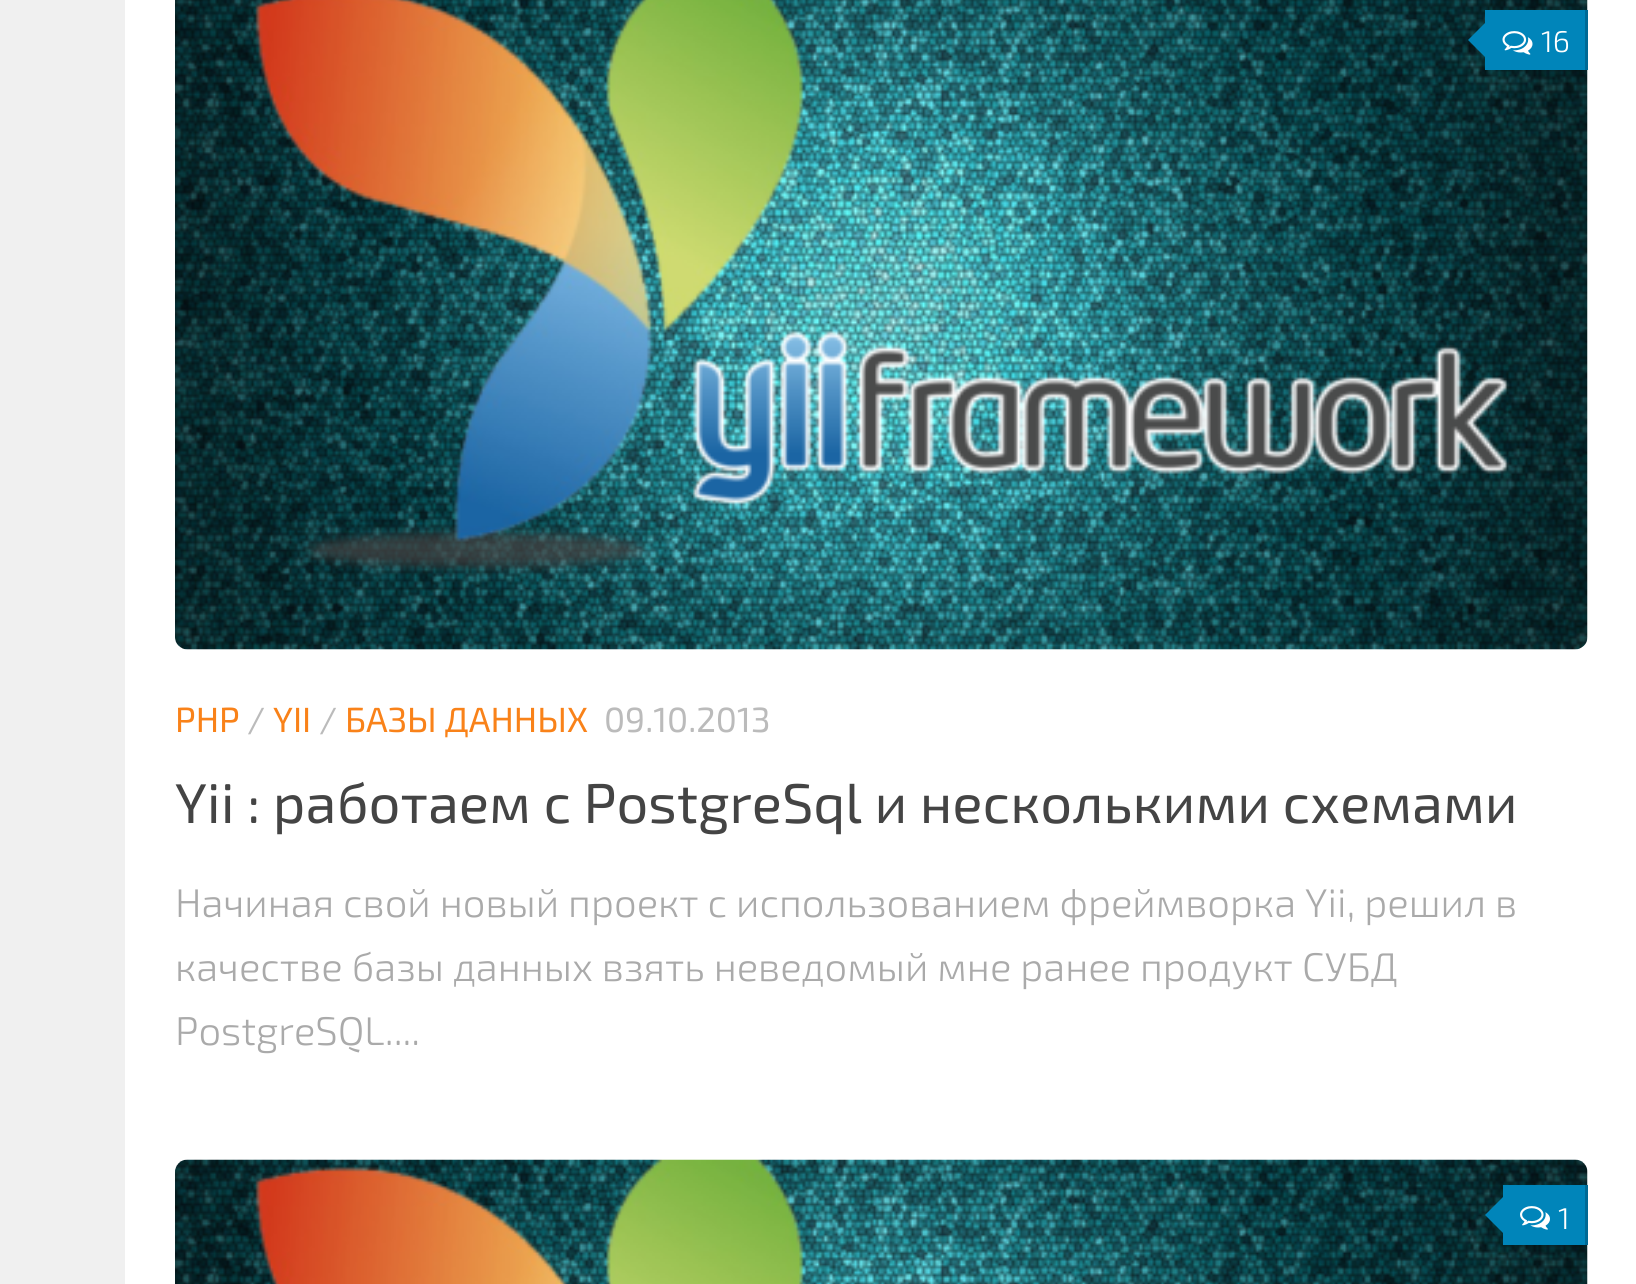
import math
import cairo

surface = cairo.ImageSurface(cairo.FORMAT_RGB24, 1636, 1284)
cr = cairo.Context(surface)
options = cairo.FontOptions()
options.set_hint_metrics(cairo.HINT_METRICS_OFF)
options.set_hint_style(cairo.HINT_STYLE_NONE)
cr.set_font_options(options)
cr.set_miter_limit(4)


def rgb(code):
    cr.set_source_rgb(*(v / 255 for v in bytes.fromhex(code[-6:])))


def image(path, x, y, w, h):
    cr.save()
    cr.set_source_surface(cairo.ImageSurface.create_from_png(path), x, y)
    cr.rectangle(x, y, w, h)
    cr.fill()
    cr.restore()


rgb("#ffffff")
cr.paint()
rgb("#f0f0f0")
cr.rectangle(0, 0, 125, 1284)
cr.fill()
image("img/1.png", 175, 0, 1413, 650)
rgb("#0085ba")
cr.rectangle(1485, 10, 100, 60)
cr.fill()
rgb("#006a95")
cr.rectangle(1585, 10, 3, 60)
cr.fill()
rgb("#0085ba")
cr.new_path()
cr.move_to(1490, 18)
cr.line_to(1490, 62)
cr.line_to(1468, 40)
cr.close_path()
cr.fill()
image("img/2.png", 1502, 31, 31, 24)
image("img/3.png", 175, 1159, 1413, 125)
cr.rectangle(1503, 1185, 82, 60)
cr.fill()
rgb("#006a95")
cr.rectangle(1585, 1185, 3, 60)
cr.fill()
rgb("#0085ba")
cr.new_path()
cr.move_to(1508, 1192)
cr.line_to(1508, 1238)
cr.line_to(1485, 1215)
cr.close_path()
cr.fill()
image("img/4.png", 1520, 1206, 30, 24)
cr.select_font_face("Exo 2 Light")
cr.set_font_size(30)
rgb("#ffffff")
cr.move_to(1541, 52)
cr.show_text("16")
cr.select_font_face("Exo 2")
cr.set_font_size(35)
rgb("#f98219")
cr.move_to(175, 732)
cr.show_text("PHP")
rgb("#bbbbbb")
cr.move_to(247, 732)
cr.show_text("/")
rgb("#f98219")
cr.move_to(273, 732)
cr.show_text("YII")
rgb("#bbbbbb")
cr.move_to(319, 732)
cr.show_text("/")
rgb("#f98219")
cr.move_to(345, 732)
cr.show_text("БАЗЫ ДАННЫХ")
rgb("#bbbbbb")
cr.move_to(604, 732)
cr.show_text("09.10.2013")
cr.set_font_size(56)
rgb("#444444")
cr.move_to(175, 823)
cr.show_text("Yii : работаем с PostgreSql и несколькими схемами")
cr.select_font_face("Exo 2 Light")
cr.set_font_size(40)
rgb("#aaaaaa")
for x, y, s in [
    (175, 917, "Начиная свой новый проект с использованием фреймворка Yii, решил в"),
    (175, 981, "качестве базы данных взять неведомый мне ранее продукт СУБД"),
    (175, 1045, "PostgreSQL...."),
]:
    cr.move_to(x, y)
    cr.show_text(s)
cr.set_font_size(30)
rgb("#ffffff")
cr.move_to(1558, 1229)
cr.show_text("1")
surface.write_to_png("page.png")
